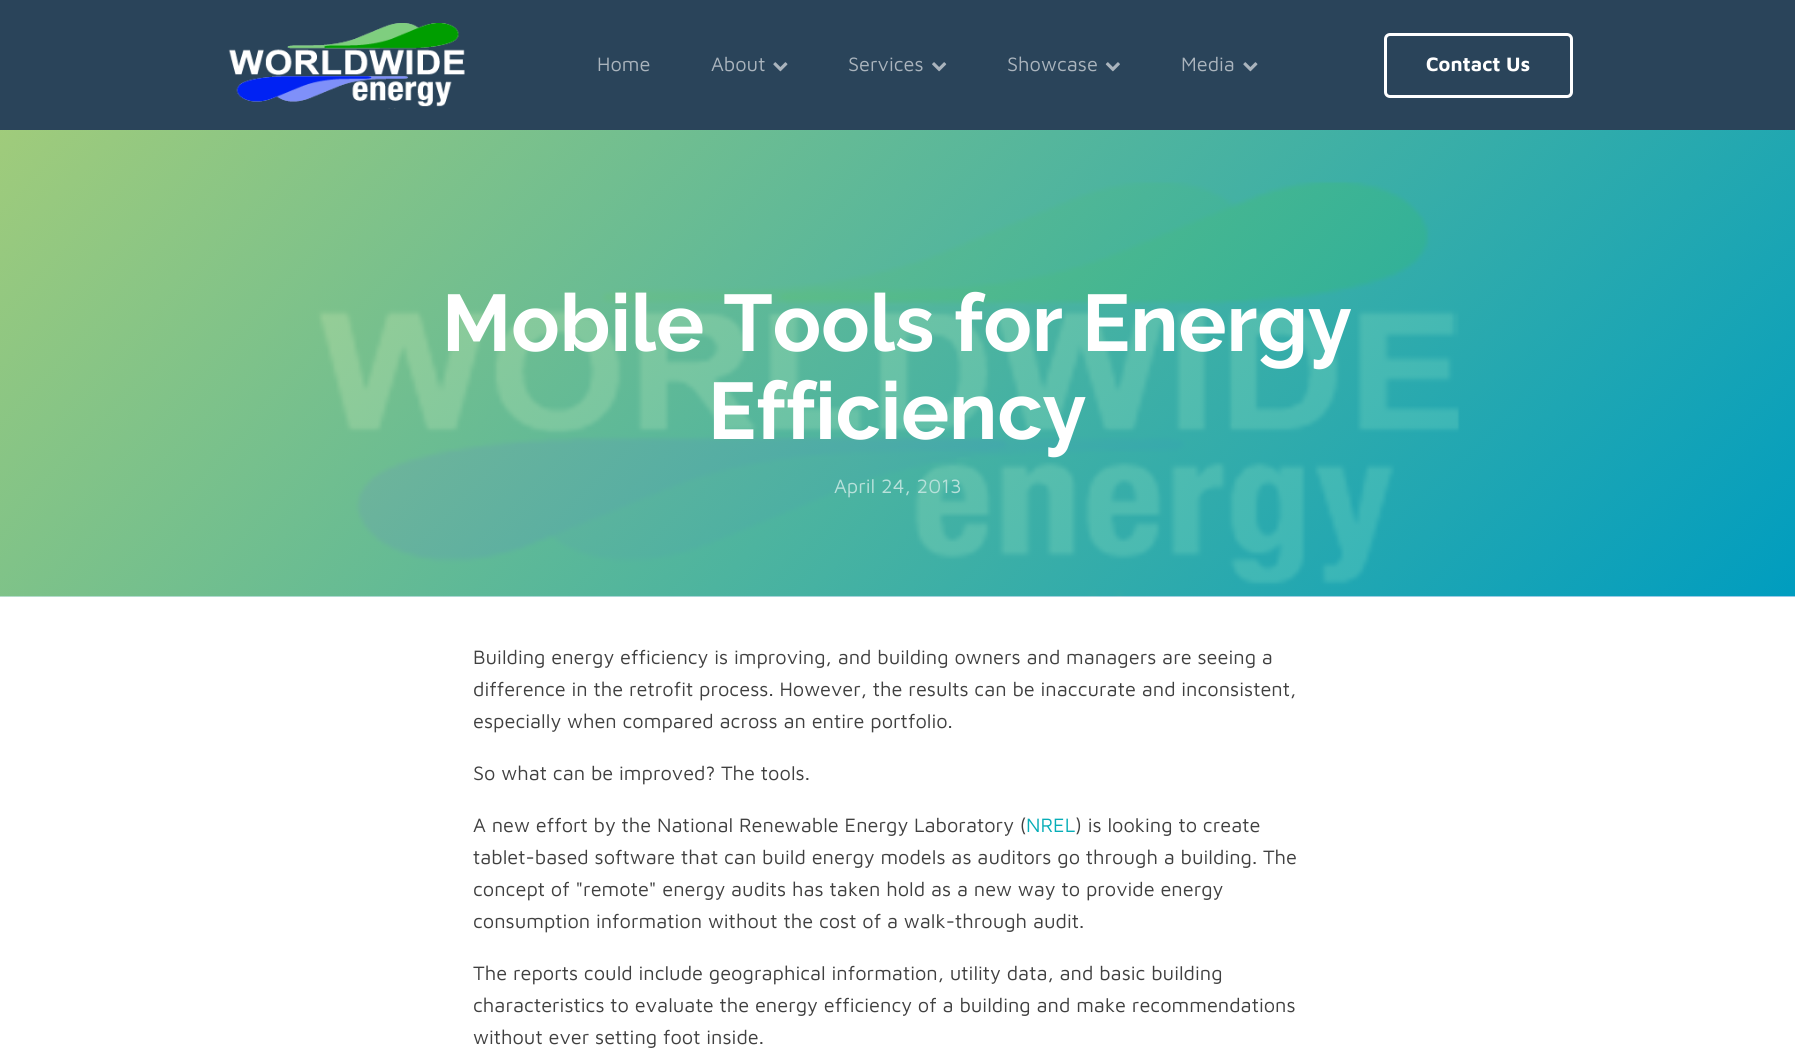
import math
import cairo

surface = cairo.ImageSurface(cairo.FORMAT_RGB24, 1795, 1051)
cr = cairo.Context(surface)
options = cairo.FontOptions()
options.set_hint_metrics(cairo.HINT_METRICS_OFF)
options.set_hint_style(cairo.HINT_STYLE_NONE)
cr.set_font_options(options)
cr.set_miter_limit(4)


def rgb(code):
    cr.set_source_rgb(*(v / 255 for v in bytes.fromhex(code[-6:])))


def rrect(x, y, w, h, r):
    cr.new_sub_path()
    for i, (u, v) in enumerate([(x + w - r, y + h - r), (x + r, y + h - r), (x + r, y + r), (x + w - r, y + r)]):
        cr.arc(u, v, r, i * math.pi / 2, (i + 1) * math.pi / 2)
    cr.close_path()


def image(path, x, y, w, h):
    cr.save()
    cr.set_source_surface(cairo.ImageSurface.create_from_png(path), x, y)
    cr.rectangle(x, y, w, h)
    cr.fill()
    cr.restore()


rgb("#ffffff")
cr.paint()
rgb("#2a445a")
cr.rectangle(0, 0, 1795, 130)
cr.fill()
image("img/1.png", 228, 23, 237, 86)
image("img/2.png", 773, 62, 15, 10)
image("img/3.png", 932, 62, 15, 10)
image("img/4.png", 1105, 62, 15, 10)
image("img/2.png", 1243, 62, 15, 10)
rrect(1385.5, 34.5, 186, 62, 4.5)
rgb("#ffffff")
cr.set_line_width(3)
cr.stroke()
image("img/5.png", 0, 130, 1795, 467)
cr.select_font_face("Maven Pro")
cr.set_font_size(20)
rgb("#aab4bd")
for x, y, s in [
    (597, 71, "Home"),
    (711, 71, "About"),
    (848, 71, "Services"),
    (1007, 71, "Showcase"),
    (1181, 71, "Media"),
]:
    cr.move_to(x, y)
    cr.show_text(s)
cr.select_font_face("Maven Pro", cairo.FONT_SLANT_NORMAL, cairo.FONT_WEIGHT_BOLD)
rgb("#ffffff")
cr.move_to(1426, 71)
cr.show_text("Contact Us")
cr.select_font_face("Raleway", cairo.FONT_SLANT_NORMAL, cairo.FONT_WEIGHT_BOLD)
cr.set_font_size(80)
cr.move_to(442, 351)
cr.show_text("Mobile Tools for Energy")
cr.move_to(708, 439)
cr.show_text("Efficiency")
cr.select_font_face("Maven Pro")
cr.set_font_size(20)
rgb("#b8e1db")
cr.move_to(834, 493)
cr.show_text("April 24, 2013")
rgb("#404040")
for x, y, s in [
    (473, 664, "Building energy efficiency is improving, and building owners and managers are seeing a"),
    (473, 696, "difference in the retrofit process. However, the results can be inaccurate and inconsistent,"),
    (473, 728, "especially when compared across an entire portfolio."),
    (473, 780, "So what can be improved? The tools."),
    (473, 832, "A new effort by the National Renewable Energy Laboratory ("),
]:
    cr.move_to(x, y)
    cr.show_text(s)
rgb("#07adb7")
cr.move_to(1026, 832)
cr.show_text("NREL")
rgb("#404040")
for x, y, s in [
    (1075, 832, ") is looking to create"),
    (473, 864, "tablet-based software that can build energy models as auditors go through a building. The"),
    (473, 896, "concept of \"remote\" energy audits has taken hold as a new way to provide energy"),
    (473, 928, "consumption information without the cost of a walk-through audit."),
    (473, 980, "The reports could include geographical information, utility data, and basic building"),
    (473, 1012, "characteristics to evaluate the energy efficiency of a building and make recommendations"),
    (473, 1044, "without ever setting foot inside."),
]:
    cr.move_to(x, y)
    cr.show_text(s)
surface.write_to_png("page.png")
